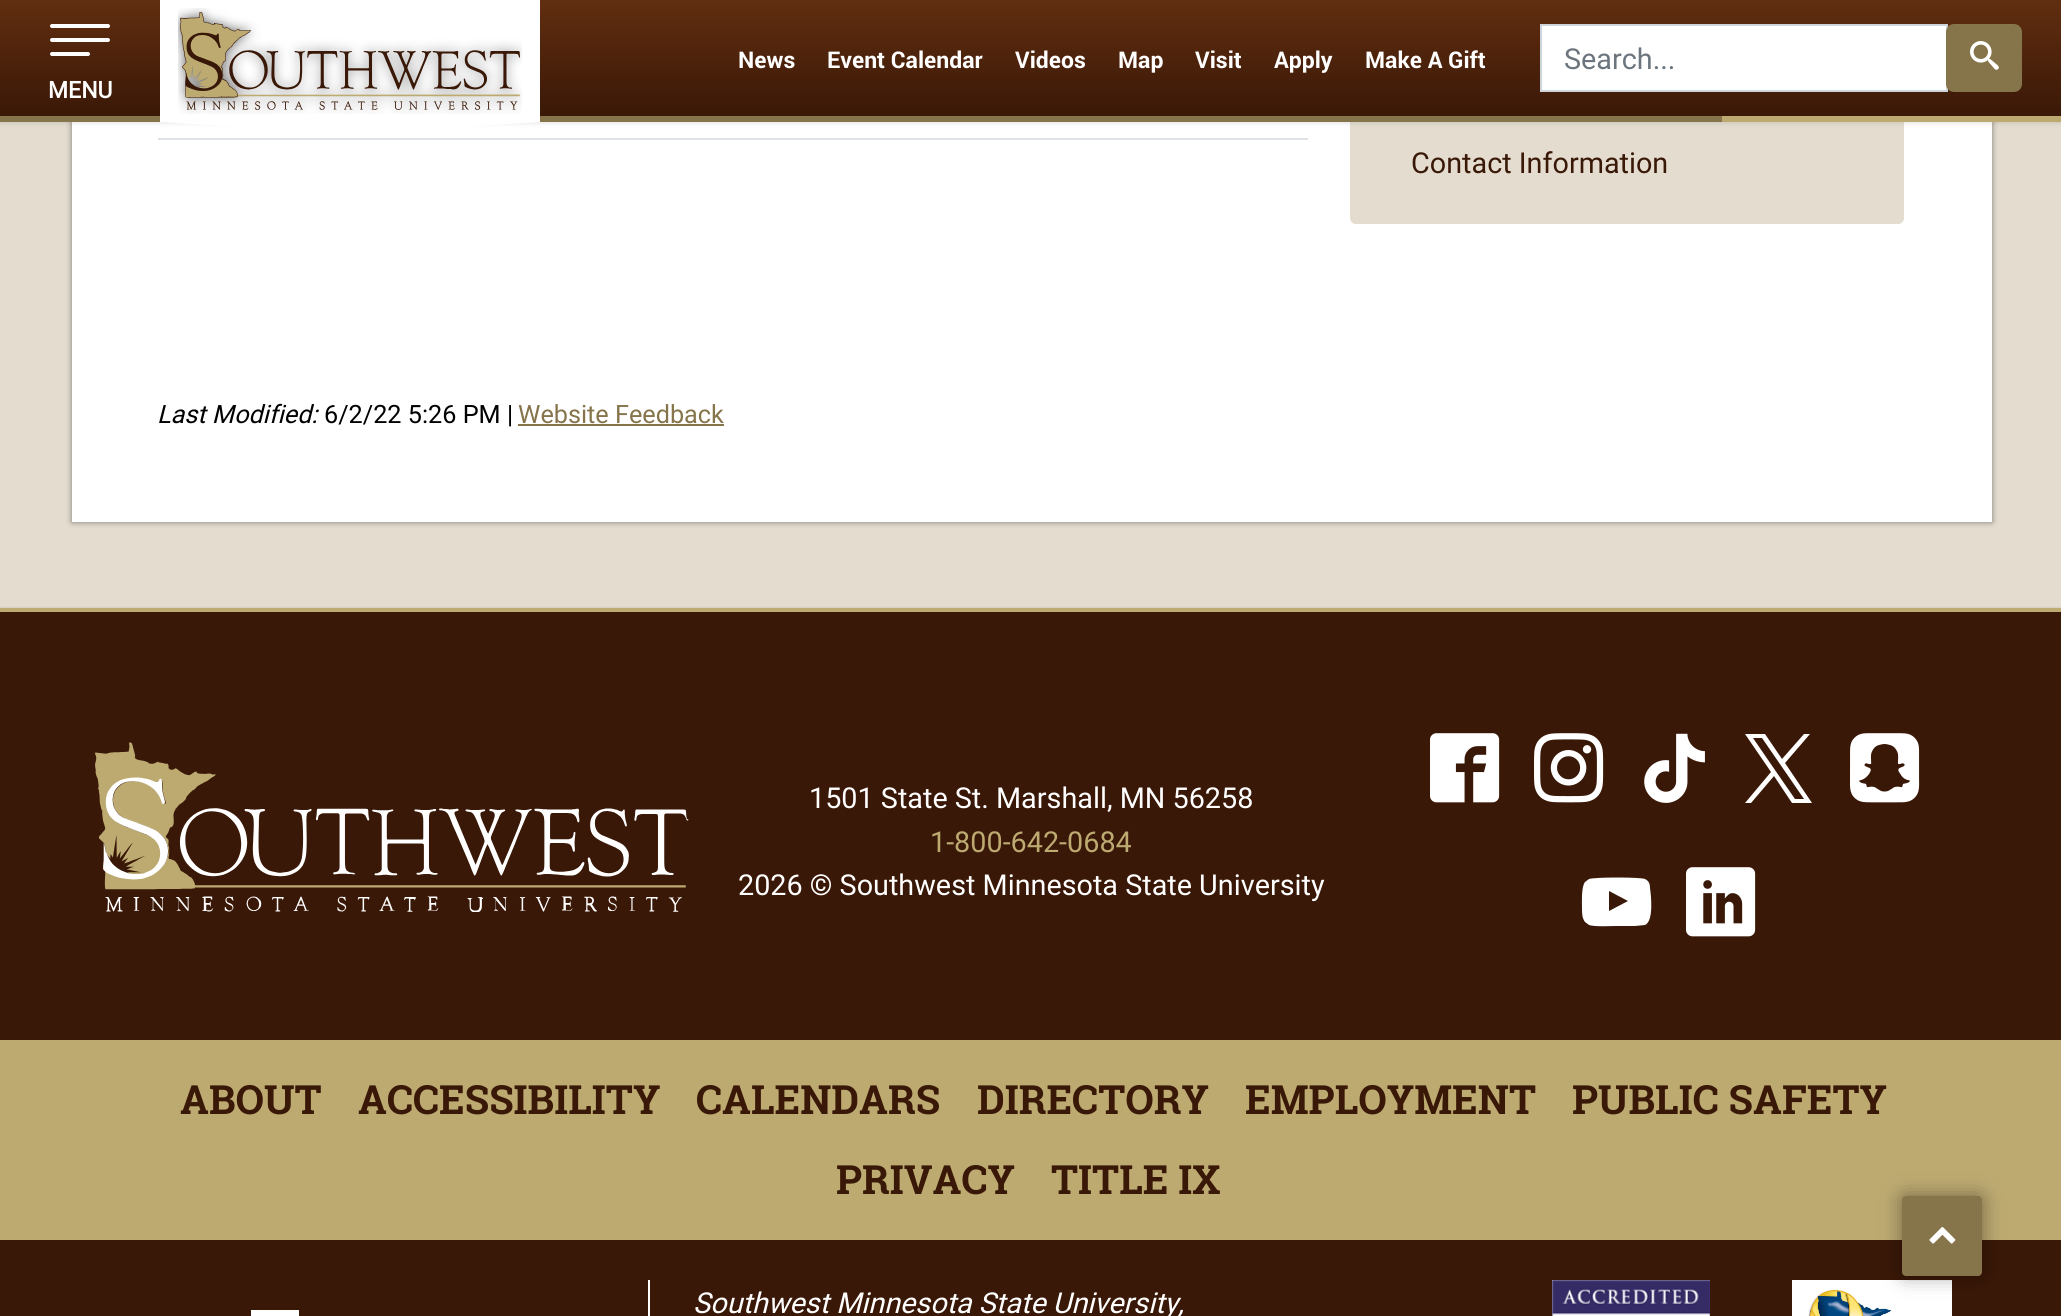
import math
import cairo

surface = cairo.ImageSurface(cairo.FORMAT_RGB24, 2061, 1316)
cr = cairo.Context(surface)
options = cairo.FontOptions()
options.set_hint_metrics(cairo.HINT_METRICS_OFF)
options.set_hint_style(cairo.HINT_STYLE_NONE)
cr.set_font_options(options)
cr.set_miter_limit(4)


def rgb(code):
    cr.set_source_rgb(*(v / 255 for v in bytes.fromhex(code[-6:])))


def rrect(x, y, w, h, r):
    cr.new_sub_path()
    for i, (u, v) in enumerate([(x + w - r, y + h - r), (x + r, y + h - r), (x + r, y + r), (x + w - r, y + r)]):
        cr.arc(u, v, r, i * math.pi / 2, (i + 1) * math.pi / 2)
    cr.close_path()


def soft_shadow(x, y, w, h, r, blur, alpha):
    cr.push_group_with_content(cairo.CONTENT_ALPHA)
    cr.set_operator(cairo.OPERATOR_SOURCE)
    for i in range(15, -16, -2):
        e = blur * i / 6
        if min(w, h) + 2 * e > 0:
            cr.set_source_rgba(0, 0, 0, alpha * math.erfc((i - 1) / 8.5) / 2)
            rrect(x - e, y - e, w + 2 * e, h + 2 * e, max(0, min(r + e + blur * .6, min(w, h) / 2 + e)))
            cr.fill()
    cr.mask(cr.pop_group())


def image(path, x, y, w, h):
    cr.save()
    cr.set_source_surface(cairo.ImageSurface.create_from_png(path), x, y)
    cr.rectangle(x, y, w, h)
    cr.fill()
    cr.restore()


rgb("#e3dccf")
cr.paint()
rgb("#000000")
soft_shadow(72, -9, 1920, 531, 0, 3, 0.45)
rgb("#ffffff")
cr.rectangle(72, 122, 1920, 400)
cr.fill()
rgb("#e3dccf")
rrect(1350, -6, 554, 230, 6)
cr.fill()
rgb("#000000")
soft_shadow(0, 0, 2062, 122, 0, 3, 0.15)
gradient = cairo.LinearGradient(1031, 0, 1031, 116)
gradient.add_color_stop_rgba(0, 0.38, 0.18, 0.063, 1)
gradient.add_color_stop_rgba(1, 0.227, 0.094, 0.027, 1)
cr.set_source(gradient)
cr.rectangle(0, 0, 2061, 116)
cr.fill()
rgb("#86744b")
cr.rectangle(0, 116, 1722, 6)
cr.fill()
rgb("#ffffff")
cr.rectangle(160, 0, 380, 122)
cr.fill()
image("img/1.png", 178, 8, 344, 106)
cr.new_path()
cr.move_to(160, 122)
cr.line_to(540, 122)
cr.line_to(350, 134)
cr.close_path()
cr.fill()
cr.rectangle(1541, 25, 406, 66)
cr.fill_preserve()
rgb("#ced4da")
cr.stroke()
rgb("#86744b")
rrect(1947, 25, 74, 66, 7)
cr.fill_preserve()
cr.stroke()
image("img/2.png", 1970, 41, 29, 29)
rgb("#ffffff")
rrect(50, 24, 60, 4, 2)
cr.fill()
rrect(50, 38, 60, 4, 2)
cr.fill()
rrect(50, 52, 40, 4, 2)
cr.fill()
for x, y, w, h, color in [
    (1722, 116, 339, 6, "#bcaa71"),
    (158, 138, 1150, 2, "#dee2e6"),
    (518, 424, 206, 2, "#86744b"),
]:
    rgb(color)
    cr.rectangle(x, y, w, h)
    cr.fill()
rgb("#000000")
soft_shadow(0, 608, 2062, 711, 0, 1, 0.15)
rgb("#3a1807")
cr.rectangle(0, 612, 2061, 704)
cr.fill()
rgb("#bcaa71")
cr.rectangle(0, 608, 2061, 4)
cr.fill()
image("img/3.png", 95, 742, 594, 170)
image("img/4.png", 1430, 733, 70, 70)
image("img/5.png", 1534, 733, 70, 70)
image("img/6.png", 1644, 733, 61, 70)
rgb("#ffffff")
cr.new_path()
cr.move_to(1785, 763)
cr.line_to(1810, 734)
cr.line_to(1804, 734)
cr.line_to(1782, 759)
cr.line_to(1765, 734)
cr.line_to(1745, 734)
cr.line_to(1771, 772)
cr.line_to(1745, 803)
cr.line_to(1751, 803)
cr.line_to(1774, 776)
cr.line_to(1792, 803)
cr.line_to(1812, 803)
cr.close_path()
cr.move_to(1777, 773)
cr.line_to(1753, 738)
cr.line_to(1762, 738)
cr.line_to(1804, 799)
cr.line_to(1795, 799)
cr.close_path()
cr.fill()
image("img/7.png", 1850, 733, 70, 70)
cr.new_path()
cr.move_to(1650, 888)
cr.curve_to(1650, 884, 1649, 881, 1645, 879)
cr.curve_to(1640, 877, 1595, 877, 1589, 879)
cr.line_to(1585, 882)
cr.curve_to(1581, 887, 1582, 904, 1582, 909)
cr.curve_to(1582, 913, 1582, 918, 1585, 922)
cr.line_to(1589, 925)
cr.curve_to(1595, 927, 1610, 926, 1617, 926)
cr.line_to(1635, 926)
cr.line_to(1645, 925)
cr.curve_to(1654, 921, 1651, 895, 1650, 888)
cr.close_path()
cr.move_to(1609, 911)
cr.line_to(1609, 891)
cr.line_to(1628, 901)
cr.close_path()
cr.fill()
image("img/8.png", 1686, 867, 70, 70)
for x, y, w, h, color in [
    (0, 1040, 2061, 200, "#bcaa71"),
    (251, 1310, 48, 6, "#ffffff"),
    (648, 1280, 2, 36, "#ffffff"),
]:
    rgb(color)
    cr.rectangle(x, y, w, h)
    cr.fill()
image("img/9.png", 1552, 1280, 158, 36)
image("img/10.png", 1792, 1280, 160, 36)
rgb("#000000")
soft_shadow(1902, 1196, 80, 80, 4, 10, 0.4)
rgb("#86744b")
rrect(1902, 1196, 80, 80, 4)
cr.fill()
image("img/11.png", 1929, 1227, 27, 17)
cr.select_font_face("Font", cairo.FONT_SLANT_NORMAL, cairo.FONT_WEIGHT_BOLD)
cr.set_font_size(23)
rgb("#ffffff")
for x, y, s in [
    (738, 68, "News"),
    (827, 68, "Event Calendar"),
    (1015, 68, "Videos"),
    (1118, 68, "Map"),
    (1195, 68, "Visit"),
    (1274, 68, "Apply"),
    (1365, 68, "Make A Gift"),
]:
    cr.move_to(x, y)
    cr.show_text(s)
cr.select_font_face("Roboto")
cr.set_font_size(28.8)
rgb("#6c757d")
cr.move_to(1564, 69)
cr.show_text("Search...")
cr.select_font_face("Roboto", cairo.FONT_SLANT_NORMAL, cairo.FONT_WEIGHT_BOLD)
cr.set_font_size(23)
rgb("#ffffff")
cr.move_to(48, 98)
cr.show_text("MENU")
cr.select_font_face("Roboto")
cr.set_font_size(28.8)
rgb("#3a1807")
cr.move_to(1411, 173)
cr.show_text("Contact Information")
cr.select_font_face("Roboto", cairo.FONT_SLANT_ITALIC)
cr.set_font_size(25.25)
rgb("#000000")
cr.move_to(157, 423)
cr.show_text("Last Modified:")
cr.select_font_face("Roboto")
cr.move_to(324, 423)
cr.show_text("6/2/22 5:26 PM |")
rgb("#86744b")
cr.move_to(518, 423)
cr.show_text("Website Feedback")
cr.set_font_size(28.8)
rgb("#ffffff")
cr.move_to(809, 808)
cr.show_text("1501 State St. Marshall, MN 56258")
rgb("#bcaa71")
cr.move_to(930, 852)
cr.show_text("1-800-642-0684")
rgb("#ffffff")
cr.move_to(738, 895)
cr.show_text("2026 © Southwest Minnesota State University")
cr.select_font_face("Roboto Slab", cairo.FONT_SLANT_NORMAL, cairo.FONT_WEIGHT_BOLD)
cr.set_font_size(40.25)
rgb("#3a1807")
for x, y, s in [
    (180, 1114, "ABOUT"),
    (358, 1114, "ACCESSIBILITY"),
    (696, 1114, "CALENDARS"),
    (977, 1114, "DIRECTORY"),
    (1245, 1114, "EMPLOYMENT"),
    (1572, 1114, "PUBLIC SAFETY"),
    (836, 1194, "PRIVACY"),
    (1051, 1194, "TITLE IX"),
]:
    cr.move_to(x, y)
    cr.show_text(s)
cr.select_font_face("Roboto", cairo.FONT_SLANT_ITALIC)
cr.set_font_size(28.8)
rgb("#ffffff")
cr.move_to(693, 1313)
cr.show_text("Southwest Minnesota State University,")
surface.write_to_png("page.png")
